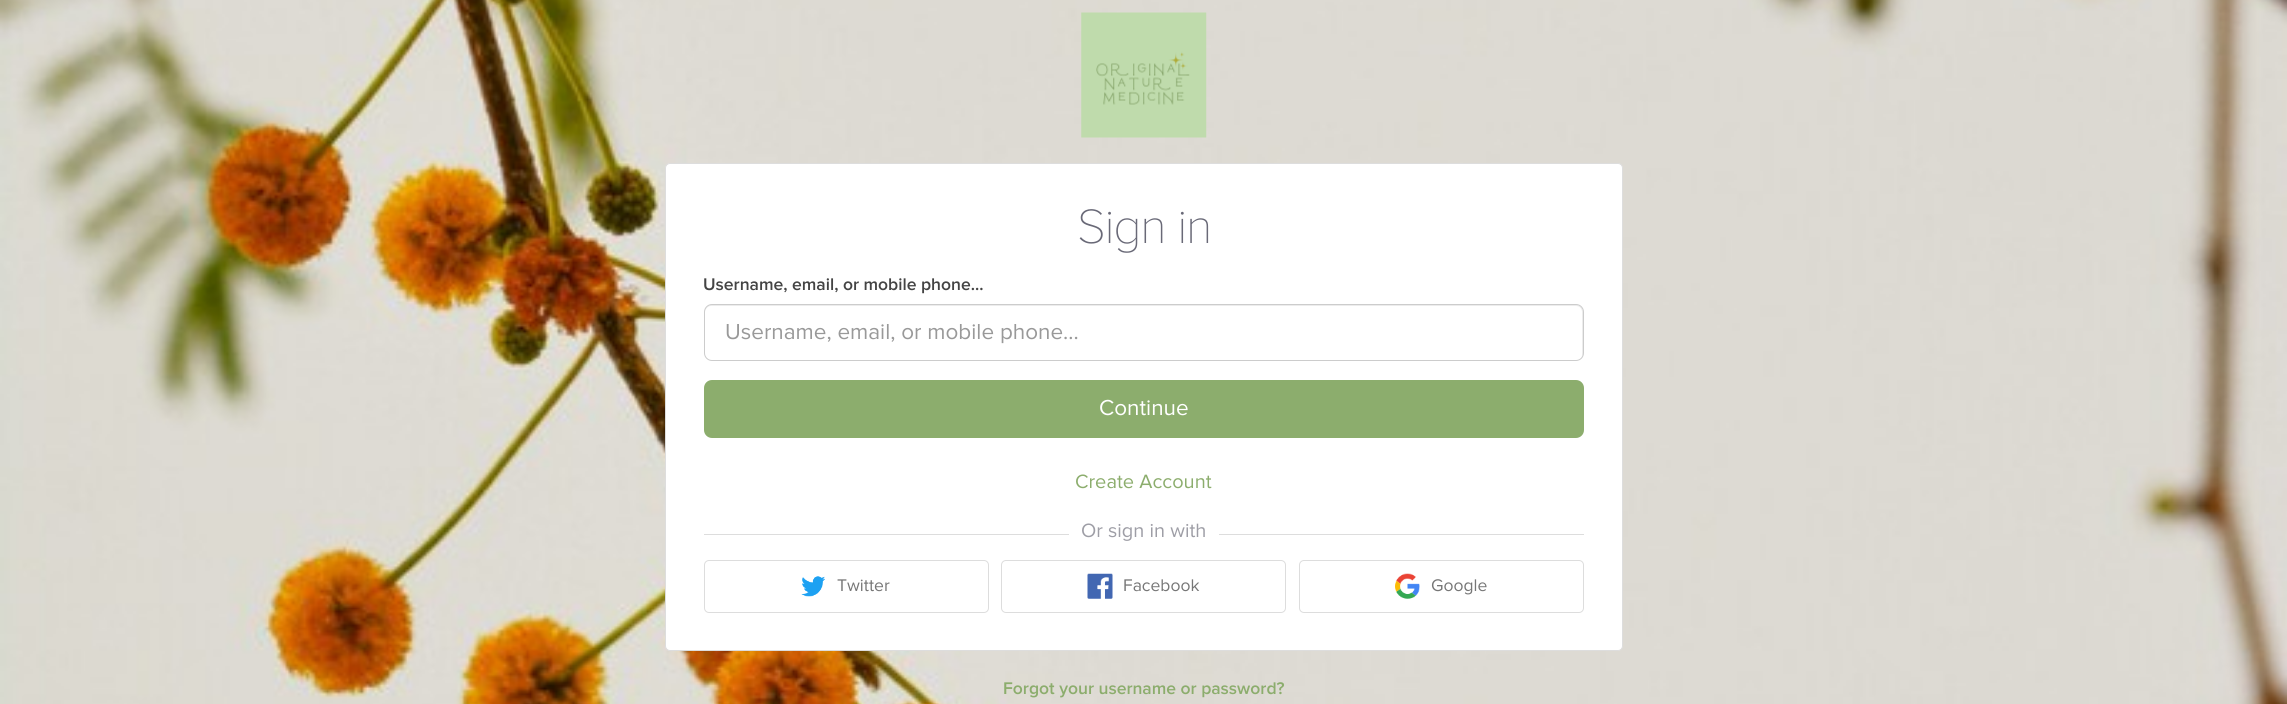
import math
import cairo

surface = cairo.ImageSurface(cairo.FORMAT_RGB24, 2287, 704)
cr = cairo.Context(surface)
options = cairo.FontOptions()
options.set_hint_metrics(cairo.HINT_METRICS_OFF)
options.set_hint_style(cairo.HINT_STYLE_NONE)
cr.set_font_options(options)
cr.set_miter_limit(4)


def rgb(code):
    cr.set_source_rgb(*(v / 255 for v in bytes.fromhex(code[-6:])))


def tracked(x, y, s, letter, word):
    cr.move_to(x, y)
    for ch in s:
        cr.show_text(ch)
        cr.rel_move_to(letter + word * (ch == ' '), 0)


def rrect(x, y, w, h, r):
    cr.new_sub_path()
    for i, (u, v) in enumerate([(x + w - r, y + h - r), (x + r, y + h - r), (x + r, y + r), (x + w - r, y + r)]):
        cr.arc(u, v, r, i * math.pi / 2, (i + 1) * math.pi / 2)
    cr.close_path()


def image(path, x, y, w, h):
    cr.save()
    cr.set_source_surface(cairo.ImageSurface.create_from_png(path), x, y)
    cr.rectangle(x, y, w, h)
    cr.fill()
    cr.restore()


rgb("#ffffff")
cr.paint()
image("img/1.png", 0, 0, 2287, 704)
image("img/2.png", 1081, 12, 126, 126)
rgb("#ffffff")
rrect(665.5, 163.5, 957, 487, 4.5)
cr.fill_preserve()
rgb("#dddddd")
cr.set_line_width(1)
cr.stroke()
rgb("#ececec")
cr.new_path()
cr.move_to(711, 306)
cr.line_to(1576, 306)
cr.curve_to(1580, 306, 1582, 309, 1582, 312)
cr.line_to(1582, 355)
cr.curve_to(1582, 356, 1582, 357, 1581, 358)
cr.curve_to(1582, 357, 1583, 356, 1583, 354)
cr.line_to(1583, 311)
cr.curve_to(1583, 308, 1580, 305, 1577, 305)
cr.line_to(711, 305)
cr.curve_to(708, 305, 705, 308, 705, 311)
cr.line_to(705, 312)
cr.curve_to(705, 309, 708, 306, 711, 306)
cr.close_path()
cr.fill()
rrect(704.5, 304.5, 879, 56, 7.5)
rgb("#cccccc")
cr.stroke()
rgb("#8cad6d")
rrect(704, 380, 880, 58, 8)
cr.fill()
rgb("#dddddd")
cr.rectangle(704, 534, 880, 1)
cr.fill()
rgb("#ffffff")
cr.rectangle(1069, 534, 150, 1)
cr.fill()
rrect(704.5, 560.5, 284, 52, 4.5)
rgb("#dddddd")
cr.stroke()
image("img/3.png", 801, 576, 24, 21)
rrect(1001.5, 560.5, 284, 52, 4.5)
cr.stroke()
image("img/4.png", 1087, 573, 26, 26)
rrect(1299.5, 560.5, 284, 52, 4.5)
cr.stroke()
image("img/5.png", 1395, 573, 25, 26)
cr.select_font_face("Proxima Nova Thin")
cr.set_font_size(50)
rgb("#696977")
tracked(1077, 243, "Sign in", -1.25, 0)
cr.select_font_face("Proxima Nova SemiBold")
cr.set_font_size(17.5)
rgb("#444444")
cr.move_to(703, 290)
cr.show_text("Username, email, or mobile phone...")
cr.select_font_face("Proxima Nova")
cr.set_font_size(22.5)
rgb("#999999")
cr.move_to(725, 339)
cr.show_text("Username, email, or mobile phone...")
rgb("#ffffff")
cr.move_to(1099, 415)
cr.show_text("Continue")
cr.set_font_size(20)
rgb("#8cad6d")
cr.move_to(1075, 488)
cr.show_text("Create Account")
rgb("#9e9ea6")
cr.move_to(1081, 537)
cr.show_text("Or sign in with")
cr.set_font_size(17.5)
rgb("#767676")
for x, y, s in [
    (837, 591, "Twitter"),
    (1123, 591, "Facebook"),
    (1431, 591, "Google"),
]:
    cr.move_to(x, y)
    cr.show_text(s)
cr.select_font_face("Proxima Nova SemiBold")
rgb("#8cad6d")
cr.move_to(1003, 694)
cr.show_text("Forgot your username or password?")
surface.write_to_png("page.png")
